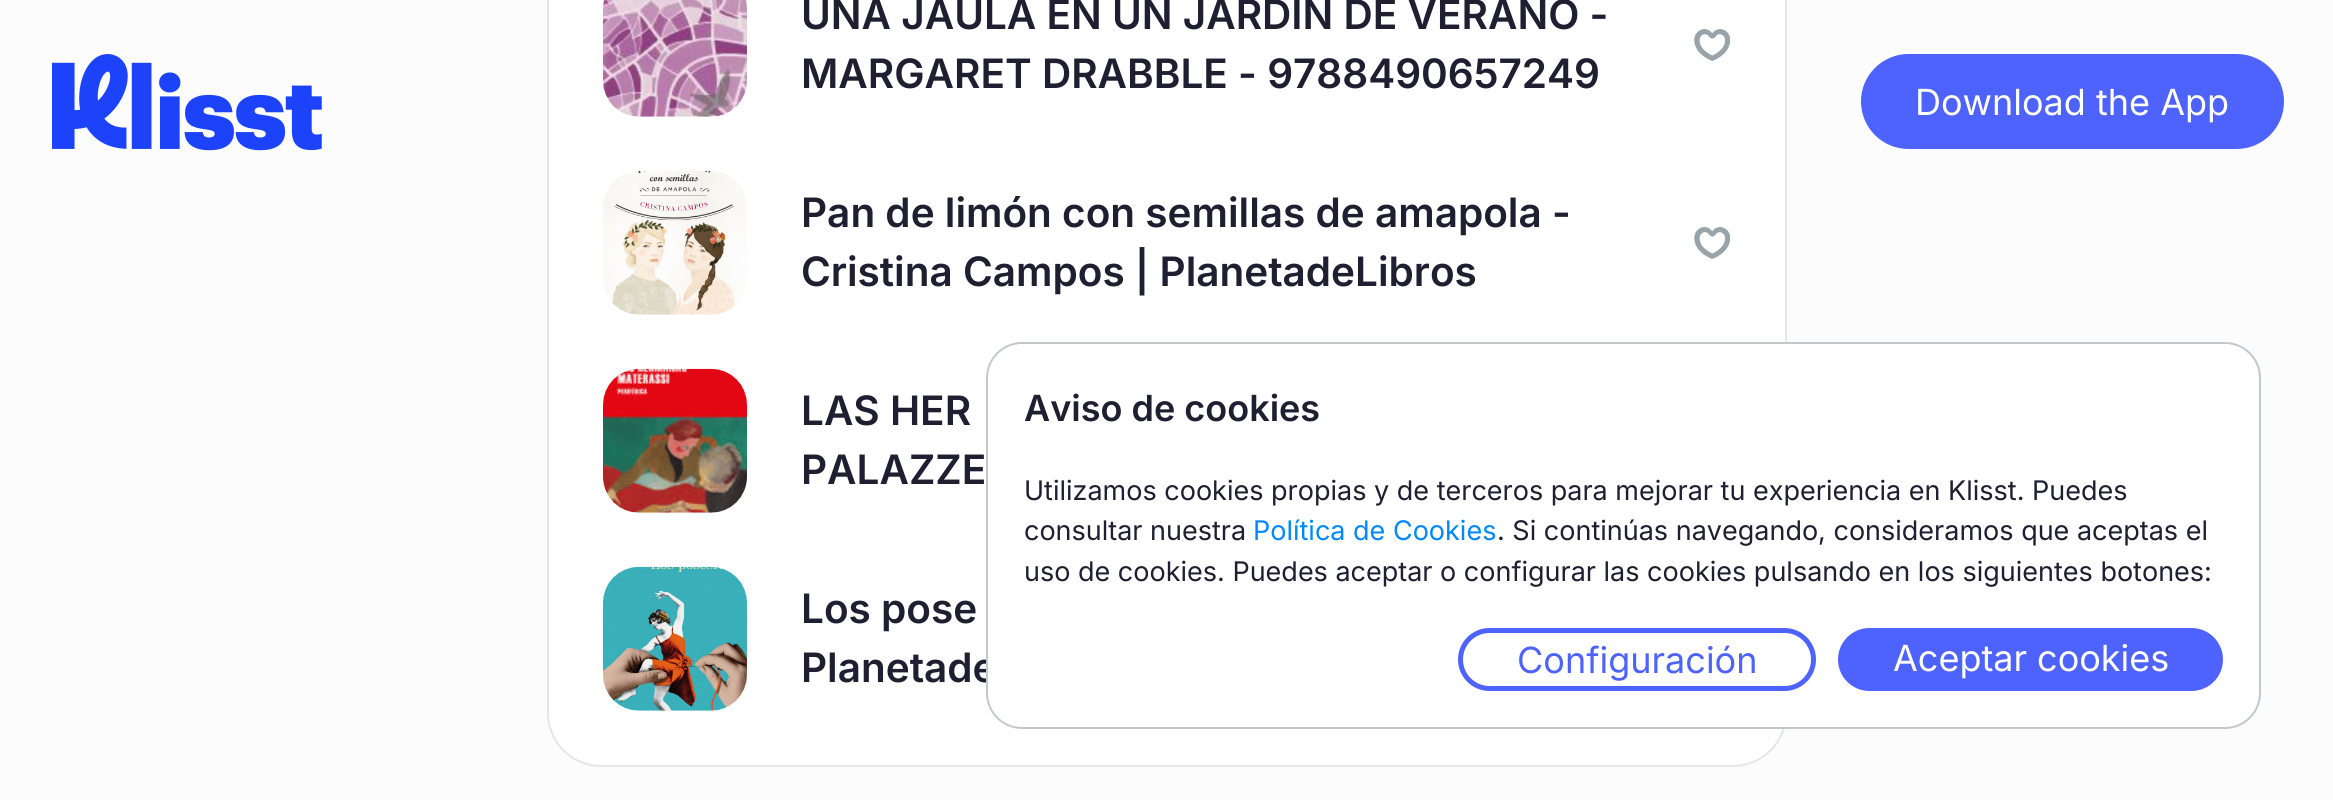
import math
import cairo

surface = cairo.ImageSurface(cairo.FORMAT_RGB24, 2333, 800)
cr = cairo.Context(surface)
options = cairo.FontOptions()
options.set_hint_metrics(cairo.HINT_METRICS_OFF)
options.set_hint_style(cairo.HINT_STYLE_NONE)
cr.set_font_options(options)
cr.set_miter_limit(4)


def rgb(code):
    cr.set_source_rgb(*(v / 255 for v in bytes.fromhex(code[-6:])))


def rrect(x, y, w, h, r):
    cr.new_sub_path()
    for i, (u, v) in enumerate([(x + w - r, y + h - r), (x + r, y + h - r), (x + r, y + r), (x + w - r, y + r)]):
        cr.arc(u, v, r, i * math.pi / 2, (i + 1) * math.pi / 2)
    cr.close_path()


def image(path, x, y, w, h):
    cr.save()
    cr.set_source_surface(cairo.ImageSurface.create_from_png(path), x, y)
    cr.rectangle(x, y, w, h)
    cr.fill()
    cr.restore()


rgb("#fcfcfc")
cr.paint()
rgb("#ffffff")
rrect(548, -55, 1238, 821, 53)
cr.fill_preserve()
rgb("#e5e6e6")
cr.stroke()
image("img/1.png", 603, 0, 144, 117)
image("img/2.png", 1694, 29, 36, 32)
image("img/3.png", 603, 170, 144, 145)
image("img/2.png", 1694, 227, 36, 32)
image("img/4.png", 603, 368, 144, 145)
image("img/5.png", 603, 566, 144, 145)
image("img/6.png", 52, 54, 270, 97)
rgb("#4e62fd")
rrect(1861, 54, 423, 95, 47.5)
cr.fill()
cr.select_font_face("Inter SemiBold")
cr.set_font_size(40.5)
rgb("#1f1f31")
for x, y, s in [
    (801, 29, "UNA JAULA EN UN JARDIN DE VERANO -"),
    (801, 88, "MARGARET DRABBLE - 9788490657249"),
    (801, 227, "Pan de limón con semillas de amapola -"),
    (801, 286, "Cristina Campos | PlanetadeLibros"),
    (801, 425, "LAS HER"),
    (801, 484, "PALAZZE"),
    (801, 623, "Los pose"),
    (801, 682, "Planetade"),
]:
    cr.move_to(x, y)
    cr.show_text(s)
cr.select_font_face("Inter")
cr.set_font_size(36)
rgb("#ffffff")
cr.move_to(1915, 115)
cr.show_text("Download the App")
rrect(987, 343, 1273, 385, 35)
cr.fill_preserve()
rgb("#c4c8ca")
cr.stroke()
cr.select_font_face("Inter SemiBold")
rgb("#1f1f31")
cr.move_to(1024, 421)
cr.show_text("Aviso de cookies")
cr.select_font_face("Inter")
cr.set_font_size(27)
cr.move_to(1024, 500)
cr.show_text("Utilizamos cookies propias y de terceros para mejorar tu experiencia en Klisst. Puedes")
cr.move_to(1024, 540)
cr.show_text("consultar nuestra")
rgb("#0088ff")
cr.move_to(1253, 540)
cr.show_text("Política de Cookies")
rgb("#1f1f31")
cr.move_to(1497, 540)
cr.show_text(". Si continúas navegando, consideramos que aceptas el")
cr.move_to(1024, 581)
cr.show_text("uso de cookies. Puedes aceptar o configurar las cookies pulsando en los siguientes botones:")
rrect(1460.5, 630.5, 353, 58, 29)
rgb("#4e62fd")
cr.set_line_width(5)
cr.stroke()
cr.set_font_size(36)
cr.move_to(1517, 673)
cr.show_text("Configuración")
rrect(1838, 628, 385, 63, 31.5)
cr.fill()
rgb("#ffffff")
cr.move_to(1893, 671)
cr.show_text("Aceptar cookies")
surface.write_to_png("page.png")
